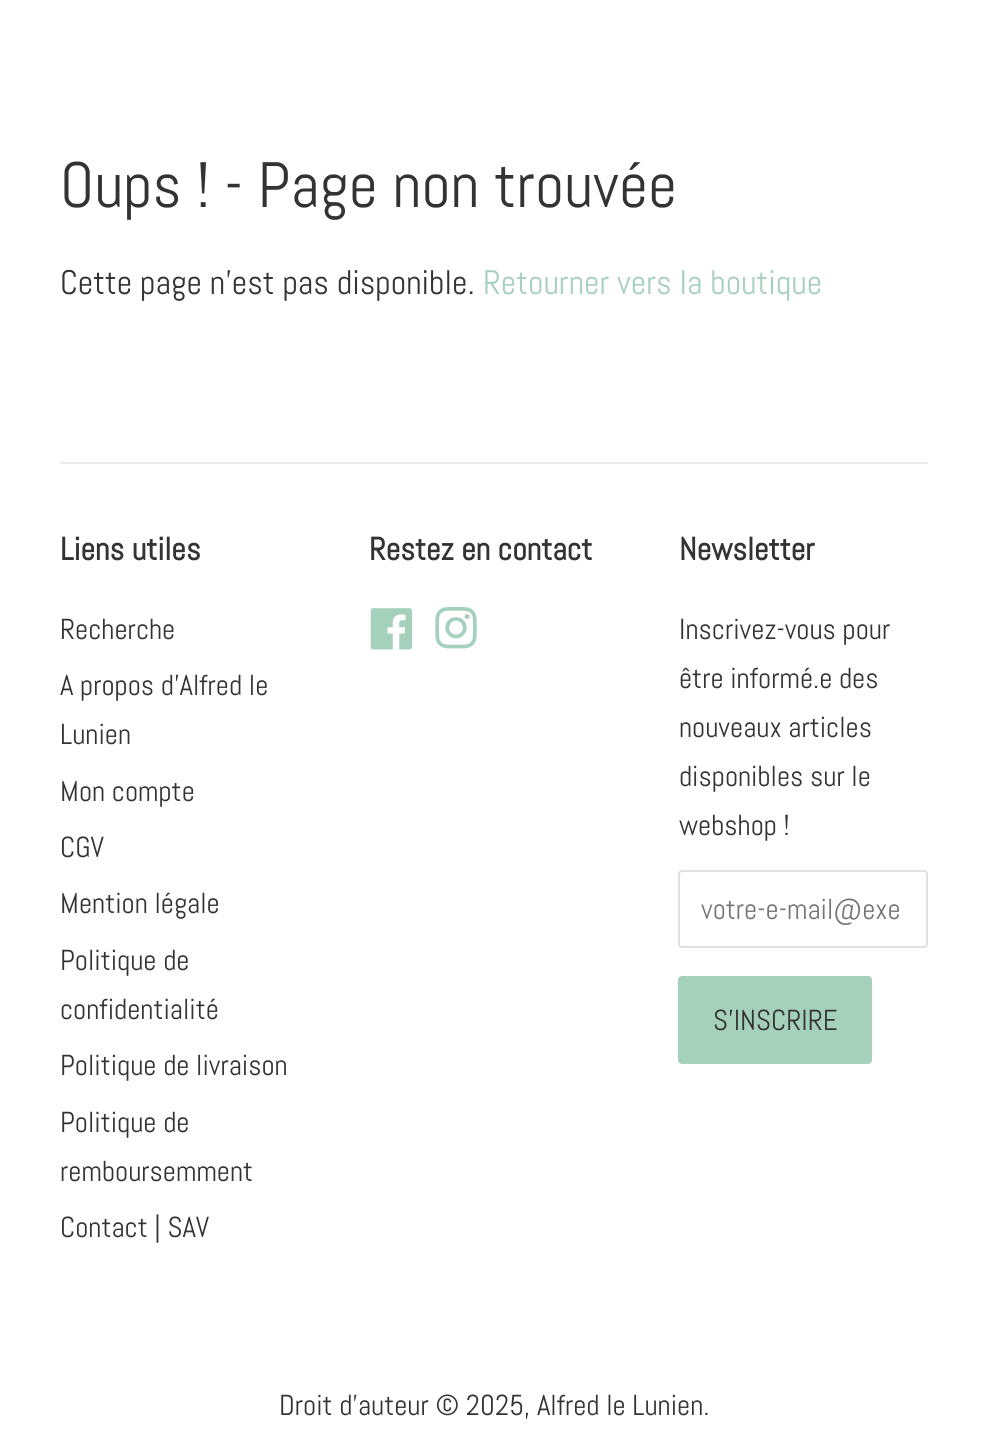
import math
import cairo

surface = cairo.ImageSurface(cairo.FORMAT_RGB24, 987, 1448)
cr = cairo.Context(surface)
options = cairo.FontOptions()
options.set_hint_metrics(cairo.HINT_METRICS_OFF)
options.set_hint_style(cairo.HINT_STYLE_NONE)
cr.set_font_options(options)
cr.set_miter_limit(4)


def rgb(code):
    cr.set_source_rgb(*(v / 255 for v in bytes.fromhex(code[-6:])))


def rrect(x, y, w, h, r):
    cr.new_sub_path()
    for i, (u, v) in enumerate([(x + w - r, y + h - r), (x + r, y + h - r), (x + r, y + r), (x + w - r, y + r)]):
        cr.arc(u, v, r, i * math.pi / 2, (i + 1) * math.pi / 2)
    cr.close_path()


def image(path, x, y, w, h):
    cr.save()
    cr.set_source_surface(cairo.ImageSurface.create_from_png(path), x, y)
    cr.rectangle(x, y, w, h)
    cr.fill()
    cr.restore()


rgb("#ffffff")
cr.paint()
rgb("#ebebeb")
cr.rectangle(60, 462, 868, 2)
cr.fill()
image("img/1.png", 370, 608, 42, 42)
image("img/2.png", 435, 606, 42, 43)
rrect(679, 871, 248, 76, 3)
rgb("#e1e0e0")
cr.stroke()
rgb("#a5d0bc")
rrect(678, 976, 194, 88, 4)
cr.fill()
cr.select_font_face("Abel")
cr.set_font_size(64)
rgb("#343333")
cr.move_to(60, 207)
cr.show_text("Oups ! - Page non trouvée")
cr.set_font_size(34)
cr.move_to(60, 294)
cr.show_text("Cette page n'est pas disponible.")
rgb("#a5d0bc")
cr.move_to(483, 294)
cr.show_text("Retourner vers la boutique")
cr.select_font_face("Abel", cairo.FONT_SLANT_NORMAL, cairo.FONT_WEIGHT_BOLD)
cr.set_font_size(32)
rgb("#343333")
cr.move_to(60, 560)
cr.show_text("Liens utiles")
cr.select_font_face("Abel")
cr.set_font_size(28.9)
for x, y, s in [
    (60, 639, "Recherche"),
    (60, 695, "A propos d'Alfred le"),
    (60, 744, "Lunien"),
    (60, 801, "Mon compte"),
    (60, 857, "CGV"),
    (60, 913, "Mention légale"),
    (60, 970, "Politique de"),
    (60, 1019, "confidentialité"),
    (60, 1075, "Politique de livraison"),
    (60, 1132, "Politique de"),
    (60, 1181, "remboursemment"),
    (60, 1237, "Contact | SAV"),
]:
    cr.move_to(x, y)
    cr.show_text(s)
cr.select_font_face("Abel", cairo.FONT_SLANT_NORMAL, cairo.FONT_WEIGHT_BOLD)
cr.set_font_size(32)
cr.move_to(369, 560)
cr.show_text("Restez en contact")
cr.move_to(679, 560)
cr.show_text("Newsletter")
cr.select_font_face("Abel")
cr.set_font_size(28.9)
for x, y, s in [
    (679, 639, "Inscrivez-vous pour"),
    (679, 688, "être informé.e des"),
    (679, 737, "nouveaux articles"),
    (679, 786, "disponibles sur le"),
    (679, 835, "webshop !"),
]:
    cr.move_to(x, y)
    cr.show_text(s)
rgb("#757575")
cr.move_to(701, 919)
cr.show_text("votre-e-mail@exe")
rgb("#343333")
cr.move_to(713, 1030)
cr.show_text("S'INSCRIRE")
cr.move_to(279, 1415)
cr.show_text("Droit d'auteur © 2025, Alfred le Lunien.")
surface.write_to_png("page.png")
